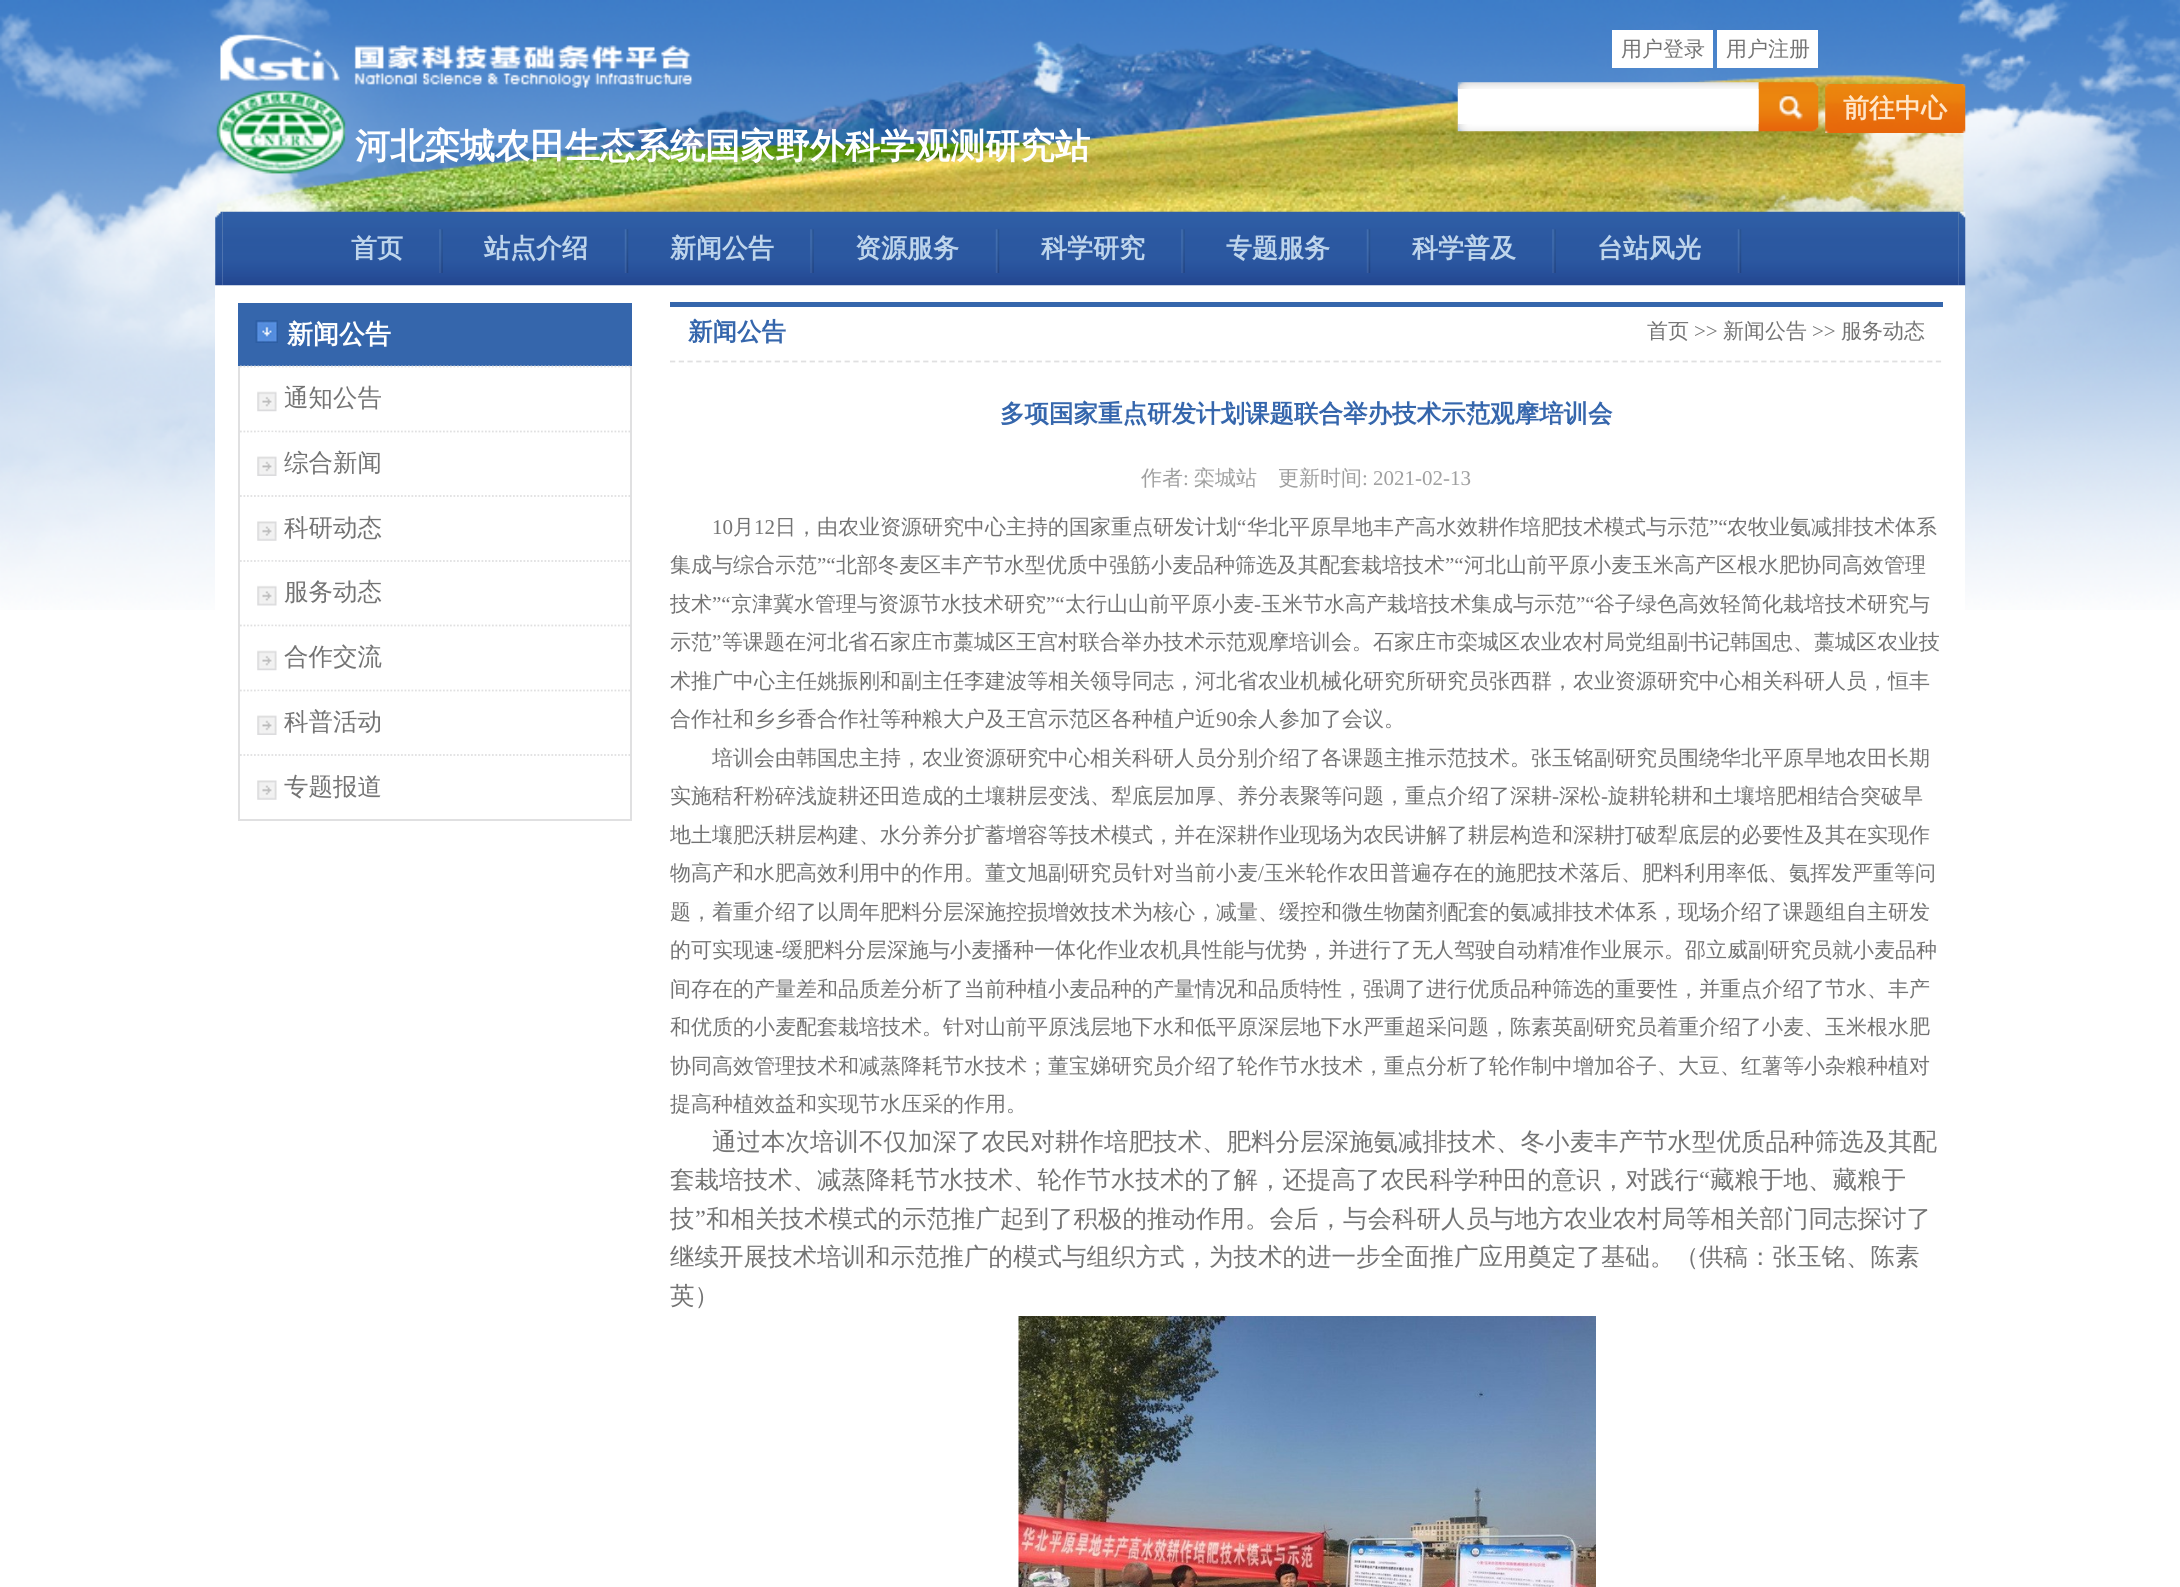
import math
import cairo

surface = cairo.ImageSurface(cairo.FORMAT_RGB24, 2180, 1587)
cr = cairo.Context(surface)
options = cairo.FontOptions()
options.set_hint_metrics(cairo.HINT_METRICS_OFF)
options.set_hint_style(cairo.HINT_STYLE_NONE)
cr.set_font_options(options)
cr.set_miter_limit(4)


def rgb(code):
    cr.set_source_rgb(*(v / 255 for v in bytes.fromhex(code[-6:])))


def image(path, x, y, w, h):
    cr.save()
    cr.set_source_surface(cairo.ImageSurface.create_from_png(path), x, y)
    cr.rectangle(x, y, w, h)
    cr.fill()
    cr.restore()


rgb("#ffffff")
cr.paint()
image("img/1.png", 0, 0, 2180, 610)
rgb("#ffffff")
cr.rectangle(1612, 30, 101, 38)
cr.fill()
cr.rectangle(1717, 30, 101, 38)
cr.fill()
image("img/2.png", 1457, 82, 302, 50)
cr.rectangle(1458, 89, 301, 35)
cr.fill()
image("img/3.png", 1758, 82, 61, 50)
image("img/4.png", 1825, 84, 141, 49)
cr.rectangle(215, 285, 1750, 325)
cr.fill()
image("img/5.png", 215, 211, 8, 75)
image("img/6.png", 222, 211, 1737, 75)
image("img/7.png", 439, 229, 4, 44)
image("img/8.png", 624, 229, 5, 44)
image("img/7.png", 810, 229, 4, 44)
image("img/9.png", 995, 229, 5, 44)
image("img/7.png", 1181, 229, 4, 44)
image("img/9.png", 1366, 229, 5, 44)
image("img/7.png", 1552, 229, 4, 44)
image("img/8.png", 1737, 229, 5, 44)
image("img/10.png", 1958, 211, 8, 75)
rgb("#3566ac")
cr.rectangle(238, 303, 394, 63)
cr.fill()
image("img/11.png", 255, 320, 23, 23)
for x, y, w, h, color in [
    (630, 366, 2, 455, "#e0e0e1"),
    (238, 819, 394, 2, "#e0e0e1"),
    (238, 366, 2, 455, "#e0e0e1"),
]:
    rgb(color)
    cr.rectangle(x, y, w, h)
    cr.fill()
cr.new_path()
cr.move_to(240, 366.5)
cr.line_to(630, 366.5)
cr.set_line_width(1.8)
cr.set_dash([1.75, 1.75])
cr.stroke()
image("img/12.png", 257, 367, 20, 45)
cr.new_path()
cr.move_to(240, 431.5)
cr.line_to(630, 431.5)
cr.stroke()
image("img/13.png", 257, 432, 20, 44)
cr.new_path()
cr.move_to(240, 496)
cr.line_to(630, 496)
cr.stroke()
image("img/14.png", 257, 521, 20, 20)
cr.new_path()
cr.move_to(240, 561)
cr.line_to(630, 561)
cr.stroke()
image("img/15.png", 257, 561, 20, 45)
cr.new_path()
cr.move_to(240, 625.5)
cr.line_to(630, 625.5)
cr.stroke()
image("img/12.png", 257, 626, 20, 45)
cr.new_path()
cr.move_to(240, 690.5)
cr.line_to(630, 690.5)
cr.stroke()
image("img/13.png", 257, 691, 20, 44)
cr.new_path()
cr.move_to(240, 755)
cr.line_to(630, 755)
cr.stroke()
image("img/14.png", 257, 780, 20, 20)
rgb("#3566ac")
cr.rectangle(670, 302, 1273, 5)
cr.fill()
cr.new_path()
cr.move_to(670, 361.5)
cr.line_to(1942.5, 361.5)
rgb("#e0e0e1")
cr.set_dash([5.25, 3.48])
cr.stroke()
image("img/16.png", 1018, 1316, 578, 271)
cr.select_font_face("WenQuanYi Zen Hei Medium")
cr.set_font_size(21)
rgb("#737373")
cr.move_to(1621, 56)
cr.show_text("用户登录")
cr.move_to(1726, 56)
cr.show_text("用户注册")
cr.select_font_face("WenQuanYi Zen Hei", cairo.FONT_SLANT_NORMAL, cairo.FONT_WEIGHT_BOLD)
cr.set_font_size(26)
rgb("#ffe6c9")
cr.move_to(1843, 117)
cr.show_text("前往中心")
cr.set_font_size(35)
rgb("#ffffff")
cr.move_to(355, 158)
cr.show_text("河北栾城农田生态系统国家野外科学观测研究站")
cr.set_font_size(26)
rgb("#bed5ec")
for x, y, s in [
    (351, 257, "首页"),
    (484, 257, "站点介绍"),
    (670, 257, "新闻公告"),
    (855, 257, "资源服务"),
    (1041, 257, "科学研究"),
    (1226, 257, "专题服务"),
    (1412, 257, "科学普及"),
    (1597, 257, "台站风光"),
]:
    cr.move_to(x, y)
    cr.show_text(s)
rgb("#ffffff")
cr.move_to(287, 343)
cr.show_text("新闻公告")
cr.select_font_face("WenQuanYi Zen Hei Medium")
cr.set_font_size(24.5)
rgb("#737373")
for x, y, s in [
    (284, 406, "通知公告"),
    (284, 471, "综合新闻"),
    (284, 536, "科研动态"),
    (284, 600, "服务动态"),
    (284, 665, "合作交流"),
    (284, 730, "科普活动"),
    (284, 795, "专题报道"),
]:
    cr.move_to(x, y)
    cr.show_text(s)
cr.select_font_face("WenQuanYi Zen Hei", cairo.FONT_SLANT_NORMAL, cairo.FONT_WEIGHT_BOLD)
rgb("#3566ac")
cr.move_to(688, 340)
cr.show_text("新闻公告")
cr.select_font_face("WenQuanYi Zen Hei Medium")
cr.set_font_size(21)
rgb("#737373")
cr.move_to(1647, 338)
cr.show_text("首页")
cr.select_font_face("Liberation Serif")
cr.move_to(1694, 338)
cr.show_text(">>")
cr.select_font_face("WenQuanYi Zen Hei Medium")
cr.move_to(1723, 338)
cr.show_text("新闻公告")
cr.select_font_face("Liberation Serif")
cr.move_to(1812, 338)
cr.show_text(">>")
cr.select_font_face("WenQuanYi Zen Hei Medium")
cr.move_to(1841, 338)
cr.show_text("服务动态")
cr.select_font_face("WenQuanYi Zen Hei", cairo.FONT_SLANT_NORMAL, cairo.FONT_WEIGHT_BOLD)
cr.set_font_size(24.5)
rgb("#3566ac")
cr.move_to(1000, 422)
cr.show_text("多项国家重点研发计划课题联合举办技术示范观摩培训会")
cr.select_font_face("WenQuanYi Zen Hei Medium")
cr.set_font_size(21)
rgb("#9f9f9f")
cr.move_to(1141, 485)
cr.show_text("作者")
cr.select_font_face("Liberation Serif")
cr.move_to(1183, 485)
cr.show_text(":")
cr.select_font_face("WenQuanYi Zen Hei Medium")
cr.move_to(1194, 485)
cr.show_text("栾城站　更新时间")
cr.select_font_face("Liberation Serif")
cr.move_to(1362, 485)
cr.show_text(": 2021-02-13")
rgb("#737373")
cr.move_to(712, 534)
cr.show_text("10")
cr.select_font_face("WenQuanYi Zen Hei Medium")
cr.move_to(733, 534)
cr.show_text("月")
cr.select_font_face("Liberation Serif")
cr.move_to(754, 534)
cr.show_text("12")
cr.select_font_face("WenQuanYi Zen Hei Medium")
cr.move_to(775, 534)
cr.show_text("日，由农业资源研究中心主持的国家重点研发计划")
cr.select_font_face("Liberation Serif")
cr.move_to(1237, 534)
cr.show_text("“")
cr.select_font_face("WenQuanYi Zen Hei Medium")
cr.move_to(1247, 534)
cr.show_text("华北平原旱地丰产高水效耕作培肥技术模式与示范")
cr.select_font_face("Liberation Serif")
cr.move_to(1709, 534)
cr.show_text("”“")
cr.select_font_face("WenQuanYi Zen Hei Medium")
cr.move_to(1727, 534)
cr.show_text("农牧业氨减排技术体系")
cr.move_to(670, 572)
cr.show_text("集成与综合示范")
cr.select_font_face("Liberation Serif")
cr.move_to(817, 572)
cr.show_text("”“")
cr.select_font_face("WenQuanYi Zen Hei Medium")
cr.move_to(836, 572)
cr.show_text("北部冬麦区丰产节水型优质中强筋小麦品种筛选及其配套栽培技术")
cr.select_font_face("Liberation Serif")
cr.move_to(1445, 572)
cr.show_text("”“")
cr.select_font_face("WenQuanYi Zen Hei Medium")
cr.move_to(1464, 572)
cr.show_text("河北山前平原小麦玉米高产区根水肥协同高效管理")
cr.move_to(670, 611)
cr.show_text("技术")
cr.select_font_face("Liberation Serif")
cr.move_to(712, 611)
cr.show_text("”“")
cr.select_font_face("WenQuanYi Zen Hei Medium")
cr.move_to(731, 611)
cr.show_text("京津冀水管理与资源节水技术研究")
cr.select_font_face("Liberation Serif")
cr.move_to(1046, 611)
cr.show_text("”“")
cr.select_font_face("WenQuanYi Zen Hei Medium")
cr.move_to(1065, 611)
cr.show_text("太行山山前平原小麦")
cr.move_to(1261, 611)
cr.show_text("玉米节水高产栽培技术集成与示范")
cr.select_font_face("Liberation Serif")
cr.move_to(1576, 611)
cr.show_text("”“")
cr.select_font_face("WenQuanYi Zen Hei Medium")
cr.move_to(1594, 611)
cr.show_text("谷子绿色高效轻简化栽培技术研究与")
cr.select_font_face("Liberation Serif")
cr.move_to(1254, 611)
cr.show_text("-")
cr.select_font_face("WenQuanYi Zen Hei Medium")
cr.move_to(670, 649)
cr.show_text("示范")
cr.select_font_face("Liberation Serif")
cr.move_to(712, 649)
cr.show_text("”")
cr.select_font_face("WenQuanYi Zen Hei Medium")
for x, y, s in [
    (722, 649, "等课题在河北省石家庄市藁城区王宫村联合举办技术示范观摩培训会。石家庄市栾城区农业农村局党组副书记韩国忠、藁城区农业技"),
    (670, 688, "术推广中心主任姚振刚和副主任李建波等相关领导同志，河北省农业机械化研究所研究员张西群，农业资源研究中心相关科研人员，恒丰"),
    (670, 726, "合作社和乡乡香合作社等种粮大户及王宫示范区各种植户近"),
]:
    cr.move_to(x, y)
    cr.show_text(s)
cr.select_font_face("Liberation Serif")
cr.move_to(1216, 726)
cr.show_text("90")
cr.select_font_face("WenQuanYi Zen Hei Medium")
for x, y, s in [
    (1237, 726, "余人参加了会议。"),
    (712, 765, "培训会由韩国忠主持，农业资源研究中心相关科研人员分别介绍了各课题主推示范技术。张玉铭副研究员围绕华北平原旱地农田长期"),
    (670, 803, "实施秸秆粉碎浅旋耕还田造成的土壤耕层变浅、犁底层加厚、养分表聚等问题，重点介绍了深耕"),
]:
    cr.move_to(x, y)
    cr.show_text(s)
cr.select_font_face("Liberation Serif")
cr.move_to(1552, 803)
cr.show_text("-")
cr.select_font_face("WenQuanYi Zen Hei Medium")
cr.move_to(1559, 803)
cr.show_text("深松")
cr.select_font_face("Liberation Serif")
cr.move_to(1601, 803)
cr.show_text("-")
cr.select_font_face("WenQuanYi Zen Hei Medium")
for x, y, s in [
    (1608, 803, "旋耕轮耕和土壤培肥相结合突破旱"),
    (670, 842, "地土壤肥沃耕层构建、水分养分扩蓄增容等技术模式，并在深耕作业现场为农民讲解了耕层构造和深耕打破犁底层的必要性及其在实现作"),
    (670, 880, "物高产和水肥高效利用中的作用。董文旭副研究员针对当前小麦"),
]:
    cr.move_to(x, y)
    cr.show_text(s)
cr.select_font_face("Liberation Serif")
cr.move_to(1258, 880)
cr.show_text("/")
cr.select_font_face("WenQuanYi Zen Hei Medium")
for x, y, s in [
    (1264, 880, "玉米轮作农田普遍存在的施肥技术落后、肥料利用率低、氨挥发严重等问"),
    (670, 919, "题，着重介绍了以周年肥料分层深施控损增效技术为核心，减量、缓控和微生物菌剂配套的氨减排技术体系，现场介绍了课题组自主研发"),
    (670, 957, "的可实现速"),
]:
    cr.move_to(x, y)
    cr.show_text(s)
cr.select_font_face("Liberation Serif")
cr.move_to(775, 957)
cr.show_text("-")
cr.select_font_face("WenQuanYi Zen Hei Medium")
for x, y, s in [
    (782, 957, "缓肥料分层深施与小麦播种一体化作业农机具性能与优势，并进行了无人驾驶自动精准作业展示。邵立威副研究员就小麦品种"),
    (670, 996, "间存在的产量差和品质差分析了当前种植小麦品种的产量情况和品质特性，强调了进行优质品种筛选的重要性，并重点介绍了节水、丰产"),
    (670, 1034, "和优质的小麦配套栽培技术。针对山前平原浅层地下水和低平原深层地下水严重超采问题，陈素英副研究员着重介绍了小麦、玉米根水肥"),
    (670, 1073, "协同高效管理技术和减蒸降耗节水技术；董宝娣研究员介绍了轮作节水技术，重点分析了轮作制中增加谷子、大豆、红薯等小杂粮种植对"),
    (670, 1111, "提高种植效益和实现节水压采的作用。"),
]:
    cr.move_to(x, y)
    cr.show_text(s)
cr.set_font_size(24.5)
cr.move_to(712, 1150)
cr.show_text("通过本次培训不仅加深了农民对耕作培肥技术、肥料分层深施氨减排技术、冬小麦丰产节水型优质品种筛选及其配")
cr.move_to(670, 1188)
cr.show_text("套栽培技术、减蒸降耗节水技术、轮作节水技术的了解，还提高了农民科学种田的意识，对践行")
cr.select_font_face("Liberation Serif")
cr.move_to(1699, 1188)
cr.show_text("“")
cr.select_font_face("WenQuanYi Zen Hei Medium")
cr.move_to(1710, 1188)
cr.show_text("藏粮于地、藏粮于")
cr.move_to(670, 1227)
cr.show_text("技")
cr.select_font_face("Liberation Serif")
cr.move_to(695, 1227)
cr.show_text("”")
cr.select_font_face("WenQuanYi Zen Hei Medium")
for x, y, s in [
    (706, 1227, "和相关技术模式的示范推广起到了积极的推动作用。会后，与会科研人员与地方农业农村局等相关部门同志探讨了"),
    (670, 1265, "继续开展技术培训和示范推广的模式与组织方式，为技术的进一步全面推广应用奠定了基础。（供稿：张玉铭、陈素"),
    (670, 1304, "英）"),
]:
    cr.move_to(x, y)
    cr.show_text(s)
surface.write_to_png("page.png")
